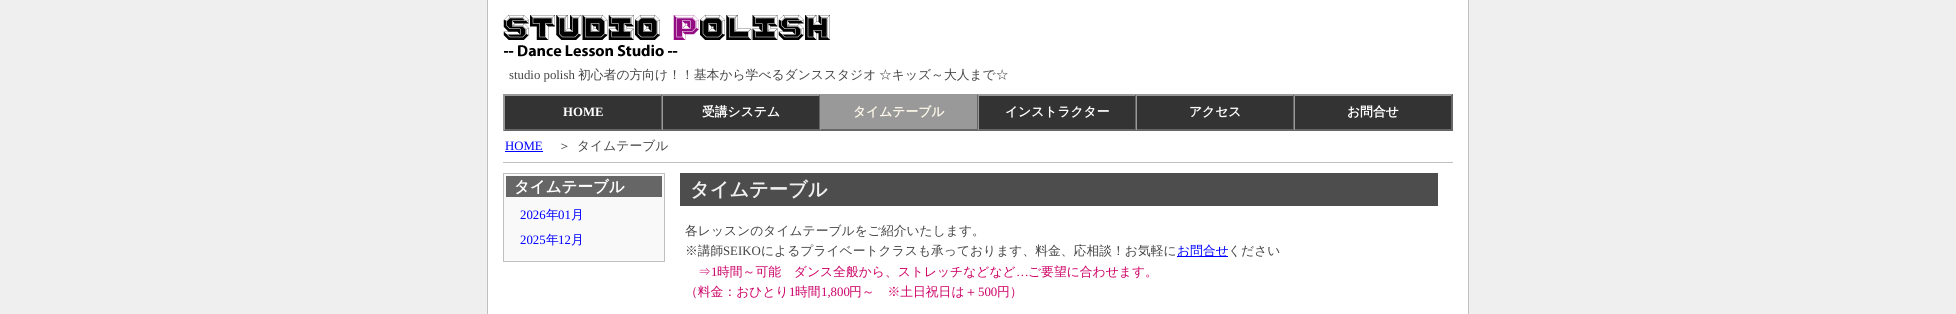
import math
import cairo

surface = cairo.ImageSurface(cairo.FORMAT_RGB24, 1956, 314)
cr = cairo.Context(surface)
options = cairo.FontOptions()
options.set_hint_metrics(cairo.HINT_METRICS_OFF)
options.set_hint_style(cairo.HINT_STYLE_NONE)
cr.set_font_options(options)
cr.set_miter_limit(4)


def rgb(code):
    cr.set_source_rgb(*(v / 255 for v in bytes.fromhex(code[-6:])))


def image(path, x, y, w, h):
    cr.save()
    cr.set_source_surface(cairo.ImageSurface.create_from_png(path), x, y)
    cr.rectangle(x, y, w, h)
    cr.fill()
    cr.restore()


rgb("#efefef")
cr.paint()
for x, y, w, h, color in [
    (488, 0, 980, 314, "#ffffff"),
    (1468, 0, 1, 314, "#c0c0c0"),
    (487, 0, 1, 314, "#c0c0c0"),
]:
    rgb(color)
    cr.rectangle(x, y, w, h)
    cr.fill()
image("img/1.png", 503, 15, 327, 42)
for x, y, w, h, color in [
    (505, 96, 946, 33, "#333333"),
    (503, 94, 950, 1, "#999999"),
    (1452, 94, 1, 37, "#666666"),
    (503, 130, 950, 1, "#666666"),
    (503, 94, 1, 37, "#999999"),
    (504, 95, 316, 1, "#999999"),
    (661, 95, 1, 35, "#666666"),
    (504, 129, 158, 1, "#666666"),
    (504, 95, 1, 35, "#999999"),
    (819, 95, 1, 35, "#666666"),
    (662, 129, 158, 1, "#666666"),
    (662, 95, 1, 35, "#999999"),
    (821, 95, 156, 34, "#999999"),
    (977, 95, 1, 35, "#666666"),
    (820, 129, 158, 1, "#666666"),
    (820, 95, 1, 35, "#999999"),
    (978, 95, 474, 1, "#999999"),
    (1135, 95, 1, 35, "#666666"),
    (978, 129, 158, 1, "#666666"),
    (978, 95, 1, 35, "#999999"),
    (1293, 95, 1, 35, "#666666"),
    (1136, 129, 158, 1, "#666666"),
    (1136, 95, 1, 35, "#999999"),
    (1451, 95, 1, 35, "#666666"),
    (1294, 129, 158, 1, "#666666"),
    (1294, 95, 1, 35, "#999999"),
    (503, 162, 950, 1, "#c0c0c0"),
    (505, 151, 38, 1, "#0000ff"),
]:
    rgb(color)
    cr.rectangle(x, y, w, h)
    cr.fill()
rgb("#f9f9f9")
cr.rectangle(503.5, 173.5, 161, 88)
cr.fill_preserve()
rgb("#c0c0c0")
cr.set_line_width(1)
cr.stroke()
for x, y, w, h, color in [
    (506, 176, 156, 21, "#666666"),
    (680, 173, 758, 33, "#4d4d4d"),
    (1177, 256, 51, 1, "#0000ff"),
]:
    rgb(color)
    cr.rectangle(x, y, w, h)
    cr.fill()
cr.select_font_face("Liberation Serif")
cr.set_font_size(12.8)
rgb("#444444")
cr.move_to(509, 79)
cr.show_text("studio polish")
cr.select_font_face("WenQuanYi Zen Hei Medium")
cr.move_to(578, 79)
cr.show_text("初心者の方向け！！基本から学べるダンススタジオ")
cr.move_to(879, 79)
cr.show_text("☆キッズ～大人まで☆")
cr.select_font_face("Liberation Serif", cairo.FONT_SLANT_NORMAL, cairo.FONT_WEIGHT_BOLD)
rgb("#ffffff")
cr.move_to(563, 116)
cr.show_text("HOME")
cr.select_font_face("WenQuanYi Zen Hei", cairo.FONT_SLANT_NORMAL, cairo.FONT_WEIGHT_BOLD)
cr.move_to(702, 116)
cr.show_text("受講システム")
rgb("#fdf8e9")
cr.move_to(853, 116)
cr.show_text("タイムテーブル")
rgb("#ffffff")
for x, y, s in [
    (1005, 116, "インストラクター"),
    (1189, 116, "アクセス"),
    (1347, 116, "お問合せ"),
]:
    cr.move_to(x, y)
    cr.show_text(s)
cr.select_font_face("Liberation Serif")
rgb("#0000ff")
cr.move_to(505, 150)
cr.show_text("HOME")
cr.select_font_face("WenQuanYi Zen Hei Medium")
rgb("#444444")
cr.move_to(558, 150)
cr.show_text("＞")
cr.move_to(577, 150)
cr.show_text("タイムテーブル")
cr.select_font_face("WenQuanYi Zen Hei", cairo.FONT_SLANT_NORMAL, cairo.FONT_WEIGHT_BOLD)
cr.set_font_size(15.5)
rgb("#ffffff")
cr.move_to(514, 192)
cr.show_text("タイムテーブル")
cr.select_font_face("Liberation Serif")
cr.set_font_size(12.8)
rgb("#0000ff")
cr.move_to(520, 219)
cr.show_text("2026")
cr.select_font_face("WenQuanYi Zen Hei Medium")
cr.move_to(546, 219)
cr.show_text("年")
cr.select_font_face("Liberation Serif")
cr.move_to(558, 219)
cr.show_text("01")
cr.select_font_face("WenQuanYi Zen Hei Medium")
cr.move_to(571, 219)
cr.show_text("月")
cr.select_font_face("Liberation Serif")
cr.move_to(520, 244)
cr.show_text("2025")
cr.select_font_face("WenQuanYi Zen Hei Medium")
cr.move_to(546, 244)
cr.show_text("年")
cr.select_font_face("Liberation Serif")
cr.move_to(558, 244)
cr.show_text("12")
cr.select_font_face("WenQuanYi Zen Hei Medium")
cr.move_to(571, 244)
cr.show_text("月")
cr.select_font_face("WenQuanYi Zen Hei", cairo.FONT_SLANT_NORMAL, cairo.FONT_WEIGHT_BOLD)
cr.set_font_size(19.25)
rgb("#f0f0f0")
cr.move_to(690, 196)
cr.show_text("タイムテーブル")
cr.select_font_face("WenQuanYi Zen Hei Medium")
cr.set_font_size(12.8)
rgb("#444444")
cr.move_to(685, 235)
cr.show_text("各レッスンのタイムテーブルをご紹介いたします。")
cr.move_to(685, 255)
cr.show_text("※講師")
cr.select_font_face("Liberation Serif")
cr.move_to(723, 255)
cr.show_text("SEIKO")
cr.select_font_face("WenQuanYi Zen Hei Medium")
cr.move_to(761, 255)
cr.show_text("によるプライベートクラスも承っております、料金、応相談！お気軽に")
rgb("#0000ff")
cr.move_to(1177, 255)
cr.show_text("お問合せ")
rgb("#444444")
cr.move_to(1228, 255)
cr.show_text("ください")
rgb("#cc0066")
cr.move_to(698, 276)
cr.show_text("⇒")
cr.select_font_face("Liberation Serif")
cr.move_to(711, 276)
cr.show_text("1")
cr.select_font_face("WenQuanYi Zen Hei Medium")
cr.move_to(717, 276)
cr.show_text("時間～可能　ダンス全般から、ストレッチなどなど")
cr.move_to(1028, 276)
cr.show_text("ご要望に合わせます。")
cr.select_font_face("Liberation Serif")
cr.move_to(1016, 276)
cr.show_text("…")
cr.select_font_face("WenQuanYi Zen Hei Medium")
cr.move_to(685, 296)
cr.show_text("（料金：おひとり")
cr.select_font_face("Liberation Serif")
cr.move_to(789, 296)
cr.show_text("1")
cr.select_font_face("WenQuanYi Zen Hei Medium")
cr.move_to(795, 296)
cr.show_text("時間")
cr.select_font_face("Liberation Serif")
cr.move_to(821, 296)
cr.show_text("1,800")
cr.select_font_face("WenQuanYi Zen Hei Medium")
cr.move_to(849, 296)
cr.show_text("円～　※土日祝日は＋")
cr.select_font_face("Liberation Serif")
cr.move_to(978, 296)
cr.show_text("500")
cr.select_font_face("WenQuanYi Zen Hei Medium")
cr.move_to(997, 296)
cr.show_text("円）")
surface.write_to_png("page.png")
